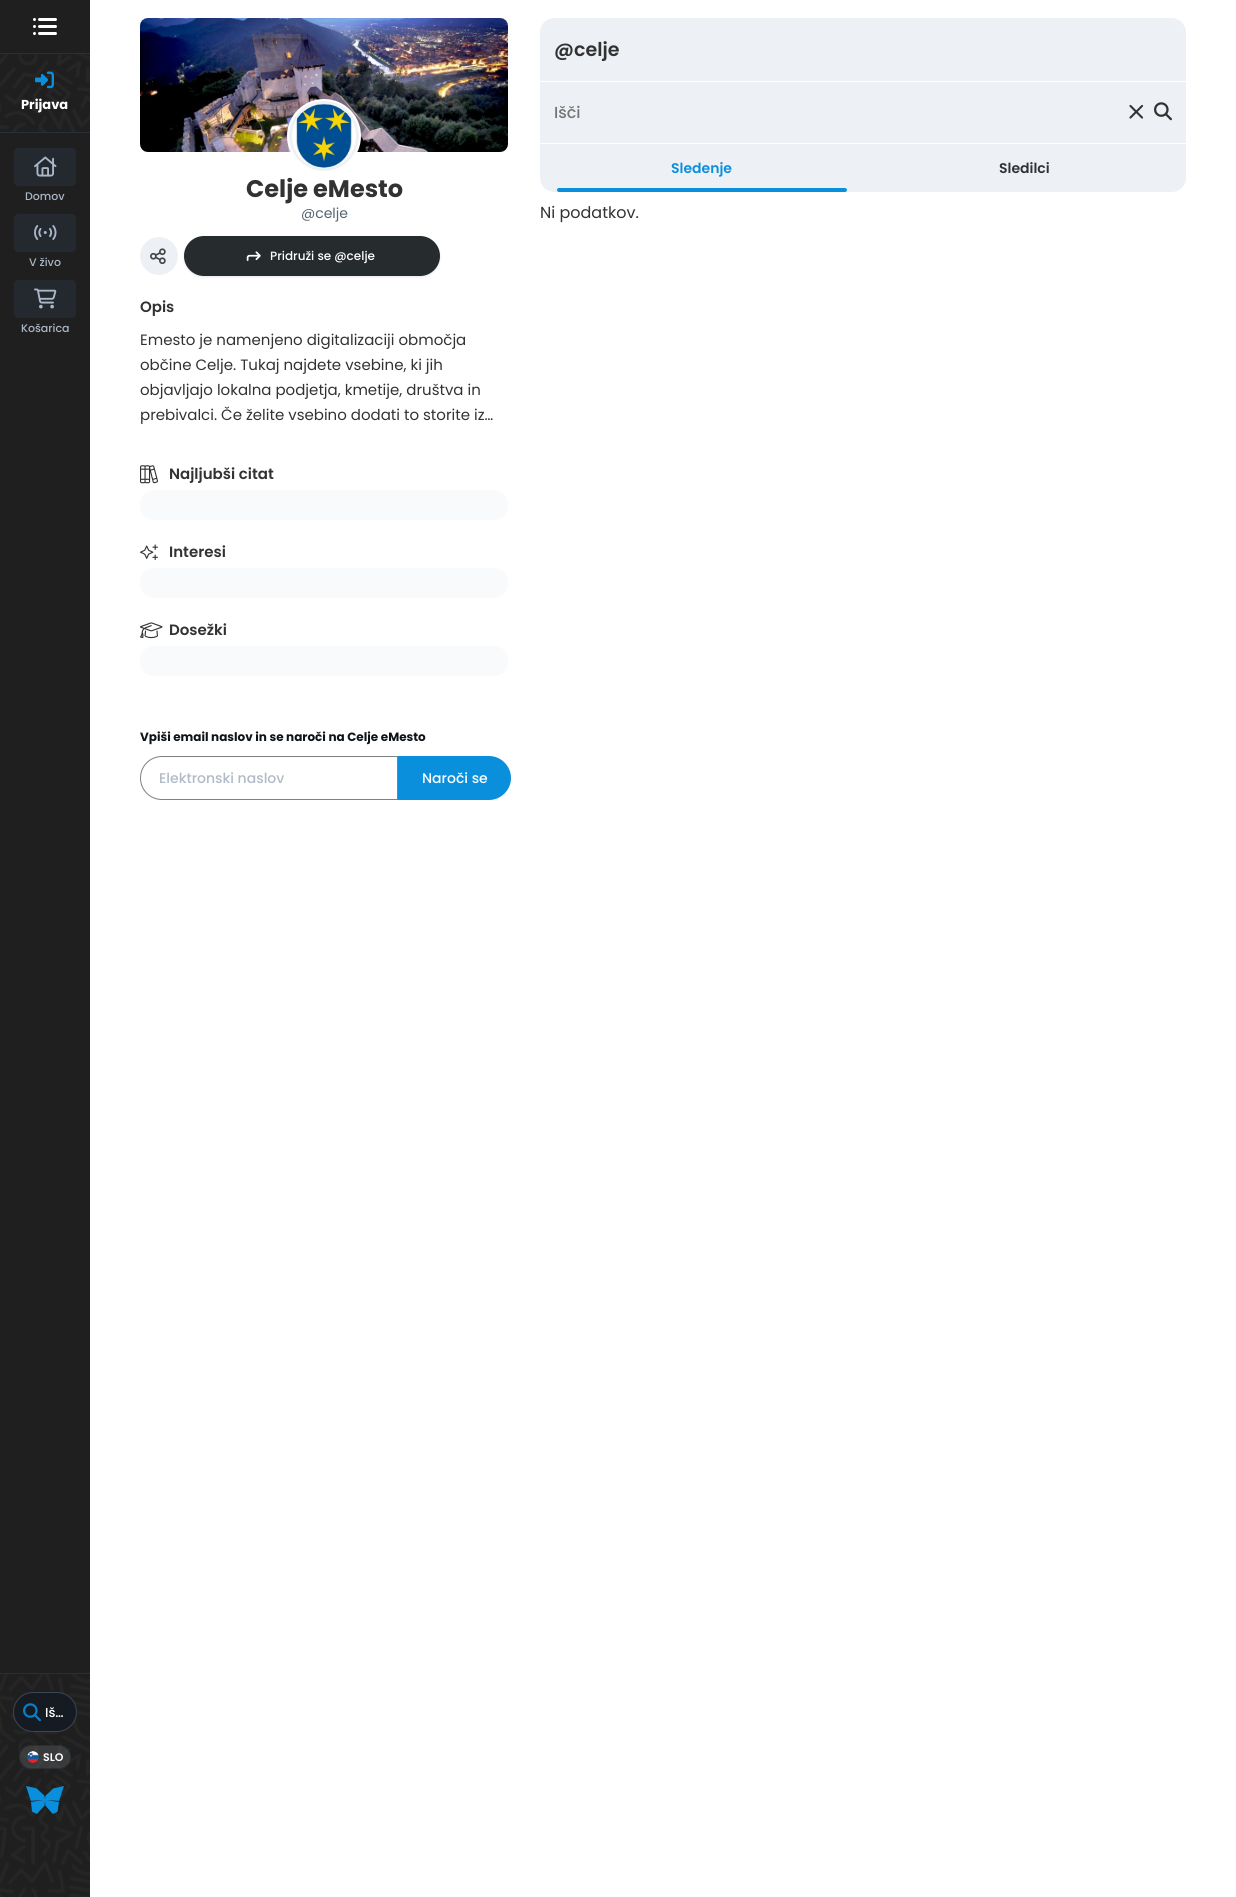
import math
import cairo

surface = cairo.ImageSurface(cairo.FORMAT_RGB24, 1236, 1897)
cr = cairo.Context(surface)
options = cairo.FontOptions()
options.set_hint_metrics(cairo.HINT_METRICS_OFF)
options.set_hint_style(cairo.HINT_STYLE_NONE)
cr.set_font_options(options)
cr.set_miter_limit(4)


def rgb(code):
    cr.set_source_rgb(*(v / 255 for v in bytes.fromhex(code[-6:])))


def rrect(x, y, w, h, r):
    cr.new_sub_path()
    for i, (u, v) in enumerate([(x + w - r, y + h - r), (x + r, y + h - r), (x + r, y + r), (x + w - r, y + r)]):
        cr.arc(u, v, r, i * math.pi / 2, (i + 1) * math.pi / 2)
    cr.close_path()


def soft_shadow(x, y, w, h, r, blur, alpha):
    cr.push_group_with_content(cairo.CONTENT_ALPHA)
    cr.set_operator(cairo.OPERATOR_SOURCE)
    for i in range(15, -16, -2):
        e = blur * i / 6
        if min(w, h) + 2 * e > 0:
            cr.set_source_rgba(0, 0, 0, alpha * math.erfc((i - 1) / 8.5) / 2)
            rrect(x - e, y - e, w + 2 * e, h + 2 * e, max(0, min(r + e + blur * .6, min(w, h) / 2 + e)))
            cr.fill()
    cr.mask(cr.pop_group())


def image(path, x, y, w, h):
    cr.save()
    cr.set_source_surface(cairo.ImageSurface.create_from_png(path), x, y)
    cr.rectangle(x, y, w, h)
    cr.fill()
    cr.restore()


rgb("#ffffff")
cr.paint()
rgb("#1f1f1f")
cr.rectangle(0, 0, 90, 1897)
cr.fill()
rgb("#ffffff")
cr.arc(34.5, 19.5, 1.5, 0, 2 * math.pi)
cr.fill()
rrect(38, 18, 19, 3, 1.5)
cr.fill()
cr.arc(34.5, 26.5, 1.5, 0, 2 * math.pi)
cr.fill()
rrect(38, 25, 19, 3, 1.5)
cr.fill()
cr.arc(34.5, 33.5, 1.5, 0, 2 * math.pi)
cr.fill()
rrect(38, 32, 19, 3, 1.5)
cr.fill()
image("img/1.png", 0, 54, 90, 78)
rgb("#28303a")
cr.rectangle(0, 53, 90, 1)
cr.fill()
cr.rectangle(0, 132, 90, 1)
cr.fill()
image("img/2.png", 35, 71, 19, 18)
rgb("#24282f")
rrect(14, 148, 62, 38, 4)
cr.fill()
image("img/3.png", 34, 156, 23, 21)
rrect(14, 214, 62, 38, 4)
cr.fill()
image("img/4.png", 34, 225, 23, 15)
rrect(14, 280, 62, 38, 4)
cr.fill()
image("img/5.png", 34, 288, 23, 21)
image("img/6.png", 0, 1674, 90, 223)
rgb("#2d2e30")
cr.rectangle(0, 1673, 90, 1)
cr.fill()
rgb("#161a22")
rrect(13.5, 1692.5, 63, 39, 19.5)
cr.fill_preserve()
rgb("#3b4753")
cr.set_line_width(1)
cr.stroke()
image("img/7.png", 23, 1703, 18, 19)
cr.set_source_rgba(0.635, 0.655, 0.675, 0.2)
rrect(19.5, 1745.5, 51, 23, 11.5)
cr.fill_preserve()
rgb("#2a3033")
cr.stroke()
image("img/8.png", 27, 1751, 12, 12)
image("img/9.png", 26, 1786, 38, 28)
rgb("#edf1f6")
cr.new_path()
cr.move_to(554, 18)
cr.line_to(1172, 18)
cr.curve_to(1179.5, 18, 1186, 24.5, 1186, 32)
cr.line_to(1186, 81)
cr.line_to(540, 81)
cr.line_to(540, 32)
cr.curve_to(540, 24.5, 546.5, 18, 554, 18)
cr.close_path()
cr.fill()
cr.rectangle(540, 82, 646, 61)
cr.fill()
image("img/10.png", 1129, 104, 15, 15)
image("img/11.png", 1154, 102, 18, 19)
cr.new_path()
cr.move_to(540, 144)
cr.line_to(863, 144)
cr.line_to(863, 192)
cr.line_to(554, 192)
cr.curve_to(546.5, 192, 540, 185.5, 540, 178)
cr.close_path()
cr.fill()
rgb("#0a8fdd")
rrect(557, 188, 290, 4, 2)
cr.fill()
rgb("#edf1f6")
cr.new_path()
cr.move_to(863, 144)
cr.line_to(1186, 144)
cr.line_to(1186, 178)
cr.curve_to(1186, 185.5, 1179.5, 192, 1172, 192)
cr.line_to(863, 192)
cr.close_path()
cr.fill()
image("img/12.png", 140, 18, 368, 134)
rgb("#ffffff")
cr.arc(324, 136, 36, 0, 2 * math.pi)
cr.fill_preserve()
cr.set_line_width(2)
cr.stroke()
cr.arc(324, 136, 33.5, 0, 2 * math.pi)
rgb("#eff2f4")
cr.set_line_width(3)
cr.stroke()
image("img/13.png", 296, 104, 58, 64)
rgb("#edf1f6")
cr.arc(159, 256, 19, 0, 2 * math.pi)
cr.fill()
image("img/14.png", 150, 248, 16, 17)
rgb("#000000")
soft_shadow(184, 237, 256, 40, 20, 1, 0.1)
rgb("#262b2e")
rrect(184, 236, 256, 40, 20)
cr.fill()
image("img/15.png", 246, 251, 15, 10)
image("img/16.png", 140, 465, 18, 19)
rgb("#f8fafc")
rrect(140, 490, 368, 30, 14)
cr.fill()
image("img/17.png", 140, 544, 18, 17)
rrect(140, 568, 368, 30, 14)
cr.fill()
image("img/18.png", 140, 622, 23, 17)
rrect(140, 646, 368, 30, 14)
cr.fill()
cr.new_path()
cr.move_to(162, 756.5)
cr.line_to(397.5, 756.5)
cr.line_to(397.5, 799.5)
cr.line_to(162, 799.5)
cr.curve_to(150, 799.5, 140.5, 790, 140.5, 778)
cr.curve_to(140.5, 766, 150, 756.5, 162, 756.5)
cr.close_path()
rgb("#808080")
cr.set_line_width(1)
cr.stroke()
rgb("#0a8fdd")
cr.new_path()
cr.move_to(398, 756)
cr.line_to(489, 756)
cr.curve_to(501, 756, 511, 766, 511, 778)
cr.curve_to(511, 790, 501, 800, 489, 800)
cr.line_to(398, 800)
cr.close_path()
cr.fill()
cr.select_font_face("Poppins", cairo.FONT_SLANT_NORMAL, cairo.FONT_WEIGHT_BOLD)
cr.set_font_size(13)
rgb("#ffffff")
cr.move_to(21, 109)
cr.show_text("Prijava")
cr.select_font_face("Poppins Medium")
cr.set_font_size(11)
rgb("#aab7c7")
for x, y, s in [
    (25, 200, "Domov"),
    (29, 266, "V živo"),
    (21, 332, "Košarica"),
]:
    cr.move_to(x, y)
    cr.show_text(s)
cr.set_font_size(13)
rgb("#ffffff")
cr.move_to(45, 1717)
cr.show_text("Iš…")
cr.select_font_face("Poppins SemiBold")
cr.set_font_size(11)
cr.move_to(43, 1761)
cr.show_text("SLO")
cr.set_font_size(19)
rgb("#323232")
cr.move_to(554, 56)
cr.show_text("@celje")
cr.select_font_face("Poppins Medium")
cr.set_font_size(16)
rgb("#757575")
cr.move_to(554, 118)
cr.show_text("Išči")
cr.select_font_face("Poppins SemiBold")
cr.set_font_size(14)
rgb("#0a8fdd")
cr.move_to(671, 173)
cr.show_text("Sledenje")
rgb("#323232")
cr.move_to(999, 173)
cr.show_text("Sledilci")
cr.select_font_face("Poppins")
cr.set_font_size(16)
cr.move_to(540, 218)
cr.show_text("Ni podatkov.")
cr.select_font_face("Poppins", cairo.FONT_SLANT_NORMAL, cairo.FONT_WEIGHT_BOLD)
cr.set_font_size(24)
cr.move_to(246, 197)
cr.show_text("Celje eMesto")
cr.select_font_face("Poppins")
cr.set_font_size(14)
rgb("#546470")
cr.move_to(301, 218)
cr.show_text("@celje")
cr.select_font_face("Poppins Medium")
cr.set_font_size(12)
rgb("#ffffff")
cr.move_to(270, 260)
cr.show_text("Pridruži se @celje")
cr.select_font_face("Poppins SemiBold")
cr.set_font_size(15)
rgb("#323232")
cr.move_to(140, 312)
cr.show_text("Opis")
cr.select_font_face("Poppins")
for x, y, s in [
    (140, 345, "Emesto je namenjeno digitalizaciji območja"),
    (140, 370, "občine Celje. Tukaj najdete vsebine, ki jih"),
    (140, 395, "objavljajo lokalna podjetja, kmetije, društva in"),
    (140, 420, "prebivalci. Če želite vsebino dodati to storite iz…"),
]:
    cr.move_to(x, y)
    cr.show_text(s)
cr.select_font_face("Poppins SemiBold")
for x, y, s in [
    (169, 479, "Najljubši citat"),
    (169, 557, "Interesi"),
    (169, 635, "Dosežki"),
]:
    cr.move_to(x, y)
    cr.show_text(s)
cr.select_font_face("Poppins", cairo.FONT_SLANT_NORMAL, cairo.FONT_WEIGHT_BOLD)
cr.set_font_size(12)
rgb("#0f1419")
cr.move_to(140, 741)
cr.show_text("Vpiši email naslov in se naroči na Celje eMesto")
cr.select_font_face("Poppins Medium")
cr.set_font_size(14)
rgb("#b0bbc7")
cr.move_to(159, 783)
cr.show_text("Elektronski naslov")
rgb("#ffffff")
cr.move_to(422, 783)
cr.show_text("Naroči se")
surface.write_to_png("page.png")
